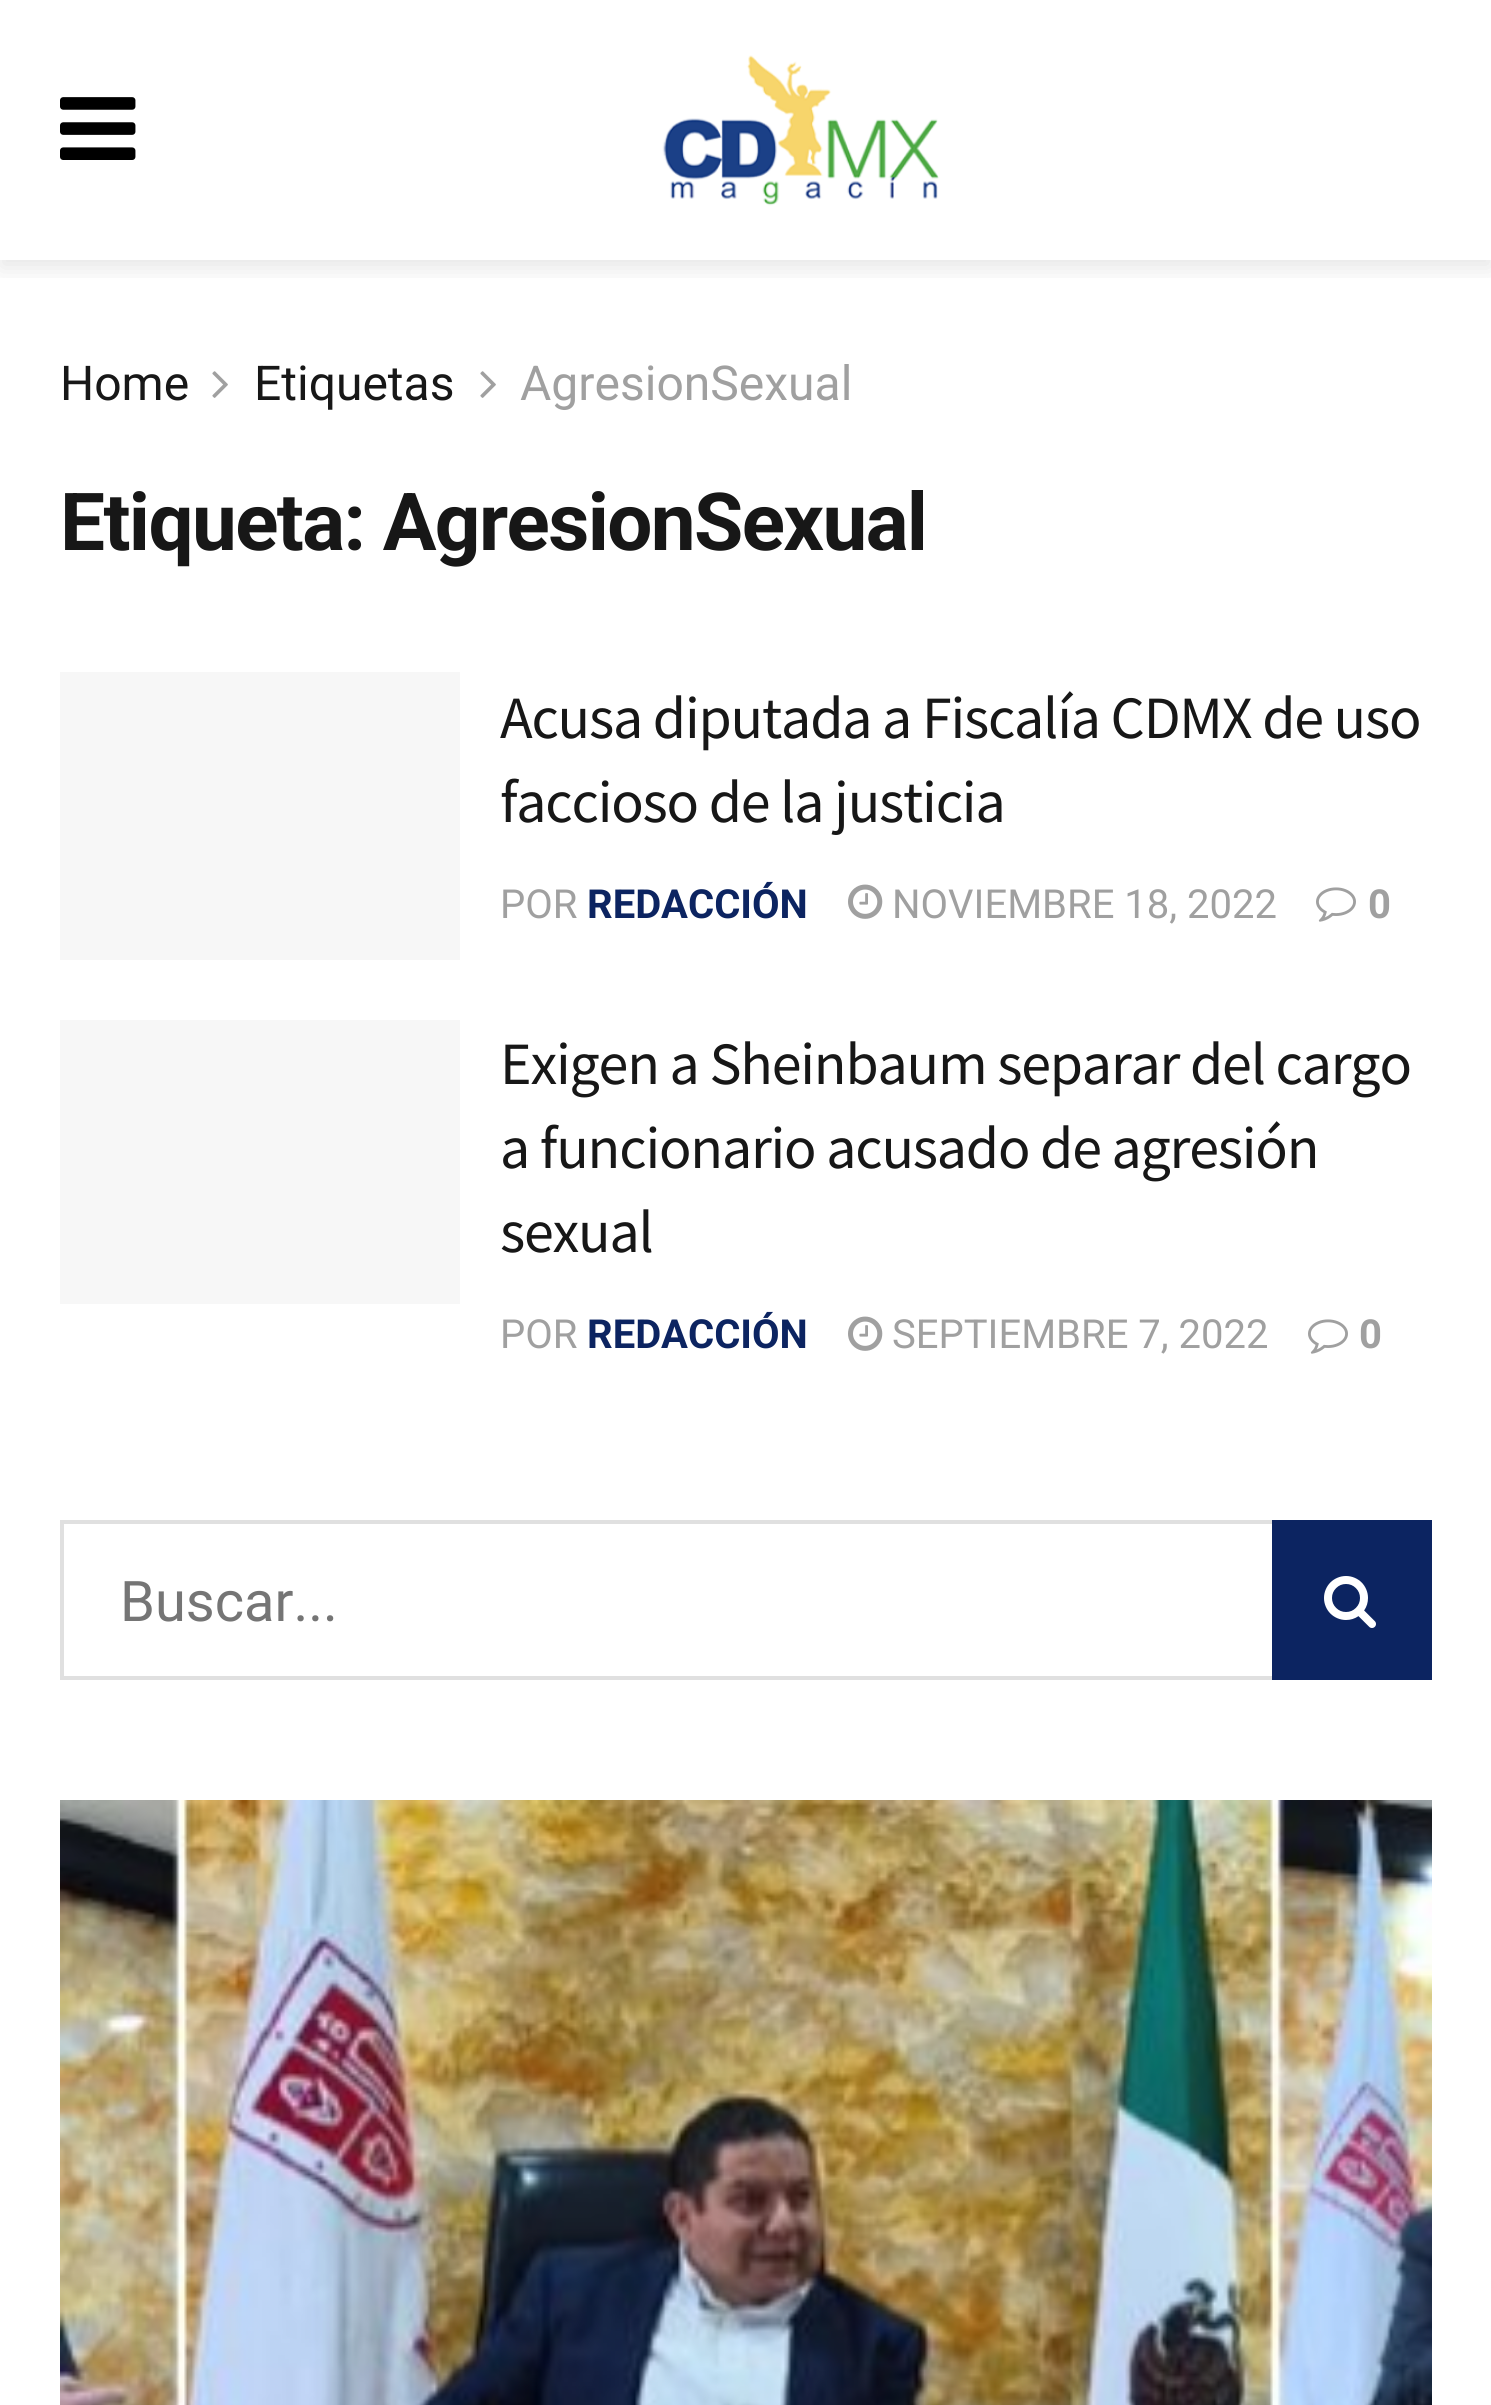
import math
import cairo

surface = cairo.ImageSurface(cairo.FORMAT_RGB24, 1491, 2405)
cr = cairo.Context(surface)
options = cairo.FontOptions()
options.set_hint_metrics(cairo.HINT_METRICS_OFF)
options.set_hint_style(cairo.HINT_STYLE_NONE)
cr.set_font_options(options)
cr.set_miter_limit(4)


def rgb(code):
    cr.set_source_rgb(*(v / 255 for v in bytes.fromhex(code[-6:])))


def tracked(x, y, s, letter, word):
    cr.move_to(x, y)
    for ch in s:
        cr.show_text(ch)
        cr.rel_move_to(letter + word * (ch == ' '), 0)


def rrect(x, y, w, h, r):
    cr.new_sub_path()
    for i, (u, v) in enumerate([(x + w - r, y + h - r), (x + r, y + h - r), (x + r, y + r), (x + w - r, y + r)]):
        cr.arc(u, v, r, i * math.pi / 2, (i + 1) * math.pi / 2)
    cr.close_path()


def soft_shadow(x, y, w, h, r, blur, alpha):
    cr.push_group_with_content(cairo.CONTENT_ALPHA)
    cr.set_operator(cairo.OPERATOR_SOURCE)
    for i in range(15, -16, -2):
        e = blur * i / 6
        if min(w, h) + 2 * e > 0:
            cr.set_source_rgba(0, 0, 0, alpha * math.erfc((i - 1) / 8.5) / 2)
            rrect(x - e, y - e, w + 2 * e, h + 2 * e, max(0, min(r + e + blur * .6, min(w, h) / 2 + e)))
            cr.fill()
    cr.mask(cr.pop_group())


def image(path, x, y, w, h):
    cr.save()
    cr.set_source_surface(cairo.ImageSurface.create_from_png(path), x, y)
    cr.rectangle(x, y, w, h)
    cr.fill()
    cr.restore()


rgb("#ffffff")
cr.paint()
cr.save()
cr.rectangle(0, 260, 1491, 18)
cr.clip()
rgb("#000000")
soft_shadow(0, 8, 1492, 260, 0, 12, 0.1)
cr.restore()
image("img/1.png", 60, 97, 76, 63)
image("img/2.png", 662, 55, 277, 151)
image("img/3.png", 212, 371, 16, 27)
image("img/3.png", 480, 371, 16, 27)
rgb("#f7f7f7")
cr.rectangle(60, 672, 400, 288)
cr.fill()
image("img/4.png", 848, 884, 35, 35)
image("img/5.png", 1316, 887, 40, 35)
cr.rectangle(60, 1020, 400, 284)
cr.fill()
image("img/4.png", 848, 1316, 35, 35)
image("img/5.png", 1308, 1319, 40, 35)
cr.rectangle(62, 1522, 1368, 156)
rgb("#e0e0e0")
cr.set_line_width(4)
cr.stroke()
rgb("#0c2461")
cr.rectangle(1272, 1520, 160, 160)
cr.fill()
image("img/6.png", 1324, 1576, 52, 52)
image("img/7.png", 60, 1800, 1372, 605)
cr.select_font_face("Roboto")
cr.set_font_size(48)
rgb("#171717")
cr.move_to(60, 400)
cr.show_text("Home")
cr.move_to(254, 400)
cr.show_text("Etiquetas")
rgb("#a0a0a0")
cr.move_to(520, 400)
cr.show_text("AgresionSexual")
cr.select_font_face("Roboto", cairo.FONT_SLANT_NORMAL, cairo.FONT_WEIGHT_BOLD)
cr.set_font_size(80)
rgb("#171717")
tracked(60, 550, "Etiqueta: AgresionSexual", -1.6, 0)
cr.select_font_face("Source Sans Pro")
cr.set_font_size(60)
tracked(500, 738, "Acusa diputada a Fiscalía CDMX de uso", -1.2, 0)
tracked(500, 822, "faccioso de la justicia", -1.2, 0)
cr.select_font_face("Roboto")
cr.set_font_size(40)
rgb("#a0a0a0")
cr.move_to(500, 918)
cr.show_text("POR")
cr.select_font_face("Roboto", cairo.FONT_SLANT_NORMAL, cairo.FONT_WEIGHT_BOLD)
rgb("#0c2461")
cr.move_to(587, 918)
cr.show_text("REDACCIÓN")
cr.select_font_face("Roboto")
rgb("#a0a0a0")
cr.move_to(892, 918)
cr.show_text("NOVIEMBRE 18, 2022")
cr.select_font_face("Roboto", cairo.FONT_SLANT_NORMAL, cairo.FONT_WEIGHT_BOLD)
cr.move_to(1368, 918)
cr.show_text("0")
cr.select_font_face("Source Sans Pro")
cr.set_font_size(60)
rgb("#171717")
for x, y, s in [
    (500, 1084, "Exigen a Sheinbaum separar del cargo"),
    (500, 1168, "a funcionario acusado de agresión"),
    (500, 1252, "sexual"),
]:
    tracked(x, y, s, -1.2, 0)
cr.select_font_face("Roboto")
cr.set_font_size(40)
rgb("#a0a0a0")
cr.move_to(500, 1348)
cr.show_text("POR")
cr.select_font_face("Roboto", cairo.FONT_SLANT_NORMAL, cairo.FONT_WEIGHT_BOLD)
rgb("#0c2461")
cr.move_to(587, 1348)
cr.show_text("REDACCIÓN")
cr.select_font_face("Roboto")
rgb("#a0a0a0")
cr.move_to(892, 1348)
cr.show_text("SEPTIEMBRE 7, 2022")
cr.select_font_face("Roboto", cairo.FONT_SLANT_NORMAL, cairo.FONT_WEIGHT_BOLD)
cr.move_to(1359, 1348)
cr.show_text("0")
cr.select_font_face("Roboto")
cr.set_font_size(56)
rgb("#757575")
cr.move_to(120, 1621)
cr.show_text("Buscar...")
surface.write_to_png("page.png")
